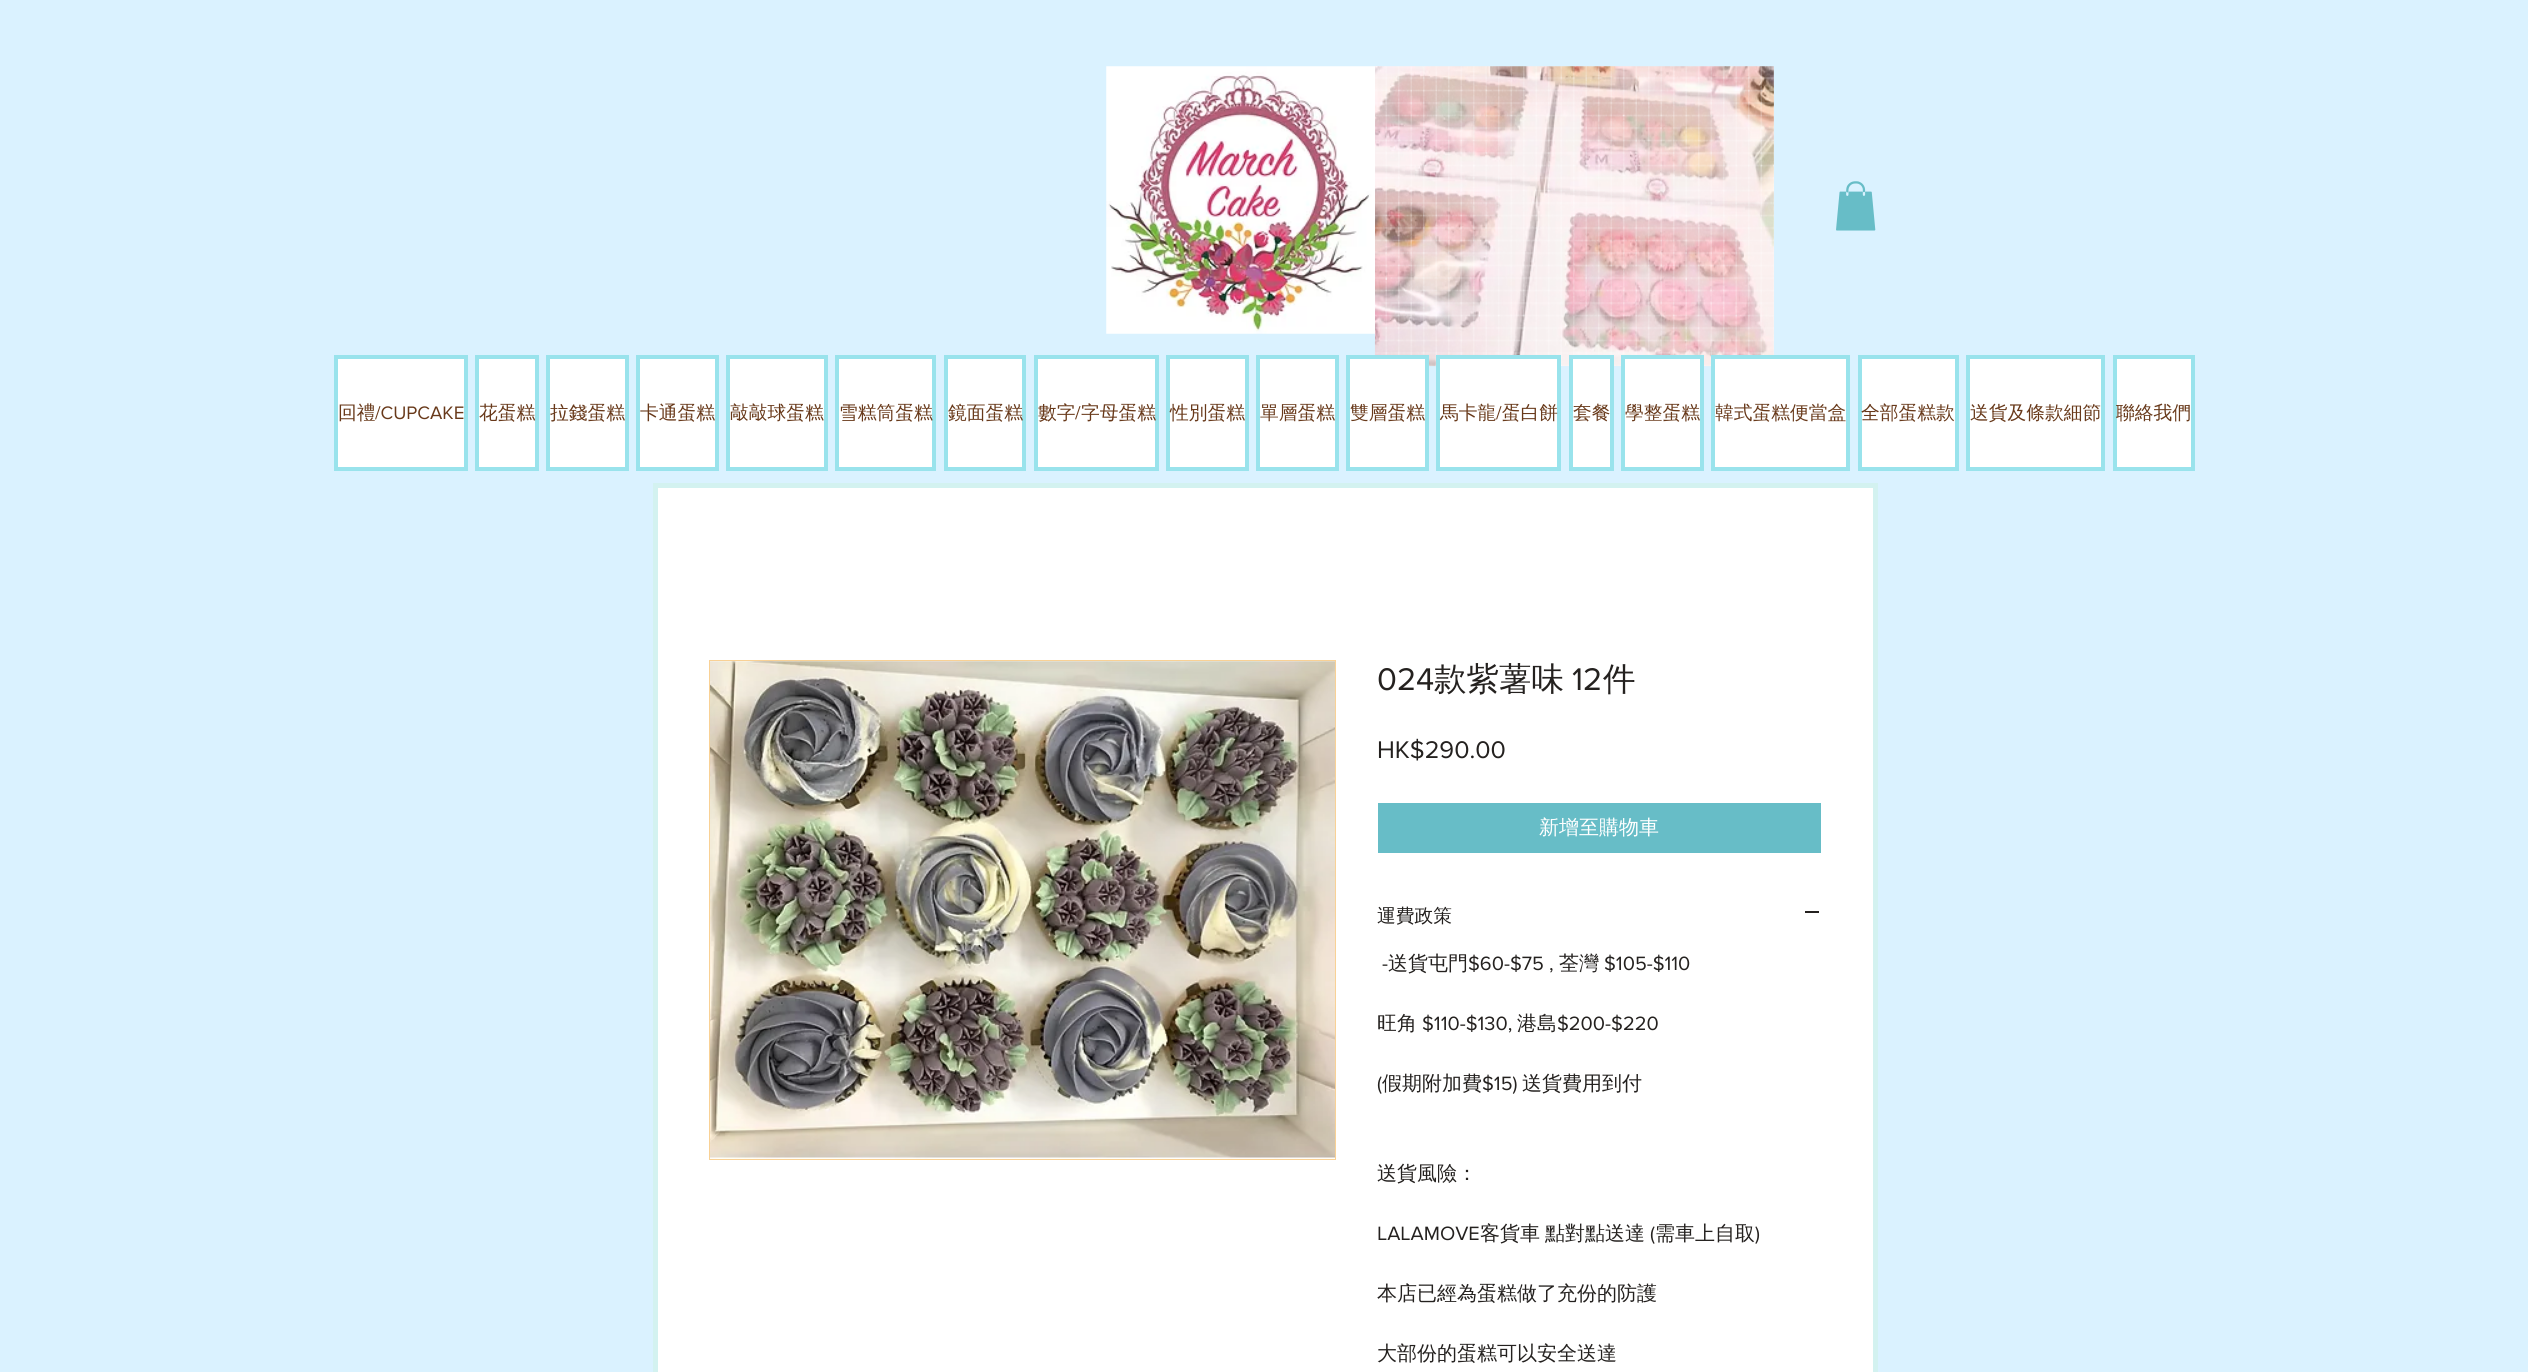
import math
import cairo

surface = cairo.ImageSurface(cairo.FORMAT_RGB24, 2528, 1372)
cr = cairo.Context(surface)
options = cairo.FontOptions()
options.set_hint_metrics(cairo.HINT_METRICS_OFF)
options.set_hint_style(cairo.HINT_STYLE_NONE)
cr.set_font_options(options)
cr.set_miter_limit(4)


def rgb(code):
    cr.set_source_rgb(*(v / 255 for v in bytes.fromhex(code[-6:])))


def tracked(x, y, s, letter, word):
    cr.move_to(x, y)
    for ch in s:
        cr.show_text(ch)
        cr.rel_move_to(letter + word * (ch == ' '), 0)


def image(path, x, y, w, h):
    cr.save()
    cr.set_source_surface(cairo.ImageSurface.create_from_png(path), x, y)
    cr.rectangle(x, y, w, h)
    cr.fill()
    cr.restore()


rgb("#daf2ff")
cr.paint()
image("img/1.png", 1106, 66, 276, 268)
image("img/2.png", 1374, 66, 400, 301)
image("img/3.png", 1375, 66, 399, 300)
image("img/4.png", 1836, 181, 40, 50)
rgb("#ffffff")
cr.rectangle(336, 357, 130, 112)
cr.fill_preserve()
rgb("#99e3ec")
cr.set_line_width(4)
cr.stroke()
rgb("#ffffff")
cr.rectangle(477, 357, 60, 112)
cr.fill_preserve()
rgb("#99e3ec")
cr.stroke()
rgb("#ffffff")
cr.rectangle(548, 357, 79, 112)
cr.fill_preserve()
rgb("#99e3ec")
cr.stroke()
rgb("#ffffff")
cr.rectangle(638, 357, 79, 112)
cr.fill_preserve()
rgb("#99e3ec")
cr.stroke()
rgb("#ffffff")
cr.rectangle(728, 357, 98, 112)
cr.fill_preserve()
rgb("#99e3ec")
cr.stroke()
rgb("#ffffff")
cr.rectangle(837, 357, 97, 112)
cr.fill_preserve()
rgb("#99e3ec")
cr.stroke()
rgb("#ffffff")
cr.rectangle(946, 357, 78, 112)
cr.fill_preserve()
rgb("#99e3ec")
cr.stroke()
rgb("#ffffff")
cr.rectangle(1036, 357, 121, 112)
cr.fill_preserve()
rgb("#99e3ec")
cr.stroke()
rgb("#ffffff")
cr.rectangle(1168, 357, 79, 112)
cr.fill_preserve()
rgb("#99e3ec")
cr.stroke()
rgb("#ffffff")
cr.rectangle(1258, 357, 79, 112)
cr.fill_preserve()
rgb("#99e3ec")
cr.stroke()
rgb("#ffffff")
cr.rectangle(1348, 357, 79, 112)
cr.fill_preserve()
rgb("#99e3ec")
cr.stroke()
rgb("#ffffff")
cr.rectangle(1438, 357, 121, 112)
cr.fill_preserve()
rgb("#99e3ec")
cr.stroke()
rgb("#ffffff")
cr.rectangle(1571, 357, 41, 112)
cr.fill_preserve()
rgb("#99e3ec")
cr.stroke()
rgb("#ffffff")
cr.rectangle(1623, 357, 79, 112)
cr.fill_preserve()
rgb("#99e3ec")
cr.stroke()
rgb("#ffffff")
cr.rectangle(1713, 357, 135, 112)
cr.fill_preserve()
rgb("#99e3ec")
cr.stroke()
rgb("#ffffff")
cr.rectangle(1860, 357, 97, 112)
cr.fill_preserve()
rgb("#99e3ec")
cr.stroke()
rgb("#ffffff")
cr.rectangle(1968, 357, 135, 112)
cr.fill_preserve()
rgb("#99e3ec")
cr.stroke()
rgb("#ffffff")
cr.rectangle(2115, 357, 78, 112)
cr.fill_preserve()
rgb("#99e3ec")
cr.stroke()
rgb("#ffffff")
cr.rectangle(655.5, 485.5, 1220, 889)
cr.fill_preserve()
rgb("#d3f2f0")
cr.set_line_width(5)
cr.stroke()
cr.rectangle(709.5, 660.5, 626, 499)
rgb("#f9d195")
cr.set_line_width(1)
cr.stroke()
image("img/5.png", 710, 661, 625, 498)
rgb("#67bdc7")
cr.rectangle(1378, 803, 443, 50)
cr.fill()
rgb("#24211f")
cr.rectangle(1805, 911, 14, 2)
cr.fill()
cr.select_font_face("WenQuanYi Zen Hei Medium")
cr.set_font_size(18.75)
rgb("#68391a")
cr.move_to(338, 419)
cr.show_text("回禮")
cr.select_font_face("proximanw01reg")
cr.move_to(375, 419)
cr.show_text("/CUPCAKE")
cr.select_font_face("WenQuanYi Zen Hei Medium")
for x, y, s in [
    (479, 419, "花蛋糕"),
    (550, 419, "拉錢蛋糕"),
    (640, 419, "卡通蛋糕"),
    (730, 419, "敲敲球蛋糕"),
    (839, 419, "雪糕筒蛋糕"),
    (948, 419, "鏡面蛋糕"),
    (1038, 419, "數字 字母蛋糕"),
]:
    cr.move_to(x, y)
    cr.show_text(s)
cr.select_font_face("proximanw01reg")
cr.move_to(1075, 419)
cr.show_text("/")
cr.select_font_face("WenQuanYi Zen Hei Medium")
for x, y, s in [
    (1170, 419, "性別蛋糕"),
    (1260, 419, "單層蛋糕"),
    (1350, 419, "雙層蛋糕"),
    (1440, 419, "馬卡龍 蛋白餅"),
]:
    cr.move_to(x, y)
    cr.show_text(s)
cr.select_font_face("proximanw01reg")
cr.move_to(1496, 419)
cr.show_text("/")
cr.select_font_face("WenQuanYi Zen Hei Medium")
for x, y, s in [
    (1573, 419, "套餐"),
    (1625, 419, "學整蛋糕"),
    (1715, 419, "韓式蛋糕便當盒"),
    (1861, 419, "全部蛋糕款"),
    (1970, 419, "送貨及條款細節"),
    (2116, 419, "聯絡我們"),
]:
    cr.move_to(x, y)
    cr.show_text(s)
cr.select_font_face("proximanw01reg")
cr.set_font_size(32.5)
rgb("#24211f")
cr.move_to(1377, 690)
cr.show_text("024")
cr.select_font_face("WenQuanYi Zen Hei Medium")
cr.move_to(1434, 690)
cr.show_text("款紫薯味")
cr.select_font_face("proximanw01reg")
cr.move_to(1572, 690)
cr.show_text("12")
cr.select_font_face("WenQuanYi Zen Hei Medium")
cr.move_to(1603, 690)
cr.show_text("件")
cr.select_font_face("proximanw01reg")
cr.set_font_size(25)
cr.move_to(1377, 758)
cr.show_text("HK$290.00")
cr.select_font_face("WenQuanYi Zen Hei Medium")
cr.set_font_size(20)
rgb("#ffffff")
cr.move_to(1539, 834)
cr.show_text("新增至購物車")
cr.set_font_size(18.75)
rgb("#24211f")
cr.move_to(1377, 922)
cr.show_text("運費政策")
cr.select_font_face("proximanw01reg")
cr.set_font_size(20)
cr.move_to(1382, 970)
cr.show_text("-")
cr.select_font_face("WenQuanYi Zen Hei Medium")
cr.move_to(1388, 970)
cr.show_text("送貨屯門")
cr.select_font_face("proximanw01reg")
cr.move_to(1468, 970)
cr.show_text("$60-$75 ,")
cr.select_font_face("WenQuanYi Zen Hei Medium")
cr.move_to(1559, 970)
cr.show_text("荃灣")
cr.select_font_face("proximanw01reg")
cr.move_to(1604, 970)
cr.show_text("$105-$110")
cr.select_font_face("WenQuanYi Zen Hei Medium")
cr.move_to(1377, 1030)
cr.show_text("旺角")
cr.select_font_face("proximanw01reg")
cr.move_to(1422, 1030)
cr.show_text("$110-$130,")
cr.select_font_face("WenQuanYi Zen Hei Medium")
cr.move_to(1517, 1030)
cr.show_text("港島")
cr.select_font_face("proximanw01reg")
cr.move_to(1557, 1030)
cr.show_text("$200-$220")
cr.move_to(1377, 1090)
cr.show_text("(")
cr.select_font_face("WenQuanYi Zen Hei Medium")
cr.move_to(1382, 1090)
cr.show_text("假期附加費")
cr.select_font_face("proximanw01reg")
cr.move_to(1482, 1090)
cr.show_text("$15)")
cr.select_font_face("WenQuanYi Zen Hei Medium")
cr.move_to(1522, 1090)
cr.show_text("送貨費用到付")
cr.move_to(1377, 1180)
cr.show_text("送貨風險：")
cr.select_font_face("proximanw01reg")
cr.move_to(1377, 1240)
cr.show_text("LALAMOVE")
cr.select_font_face("WenQuanYi Zen Hei Medium")
tracked(1480, 1240, "客貨車 點對點送達", 0, -1)
cr.select_font_face("proximanw01reg")
cr.move_to(1650, 1240)
cr.show_text("(")
cr.select_font_face("WenQuanYi Zen Hei Medium")
cr.move_to(1655, 1240)
cr.show_text("需車上自取")
cr.select_font_face("proximanw01reg")
cr.move_to(1755, 1240)
cr.show_text(")")
cr.select_font_face("WenQuanYi Zen Hei Medium")
cr.move_to(1377, 1300)
cr.show_text("本店已經為蛋糕做了充份的防護")
cr.move_to(1377, 1360)
cr.show_text("大部份的蛋糕可以安全送達")
surface.write_to_png("page.png")
